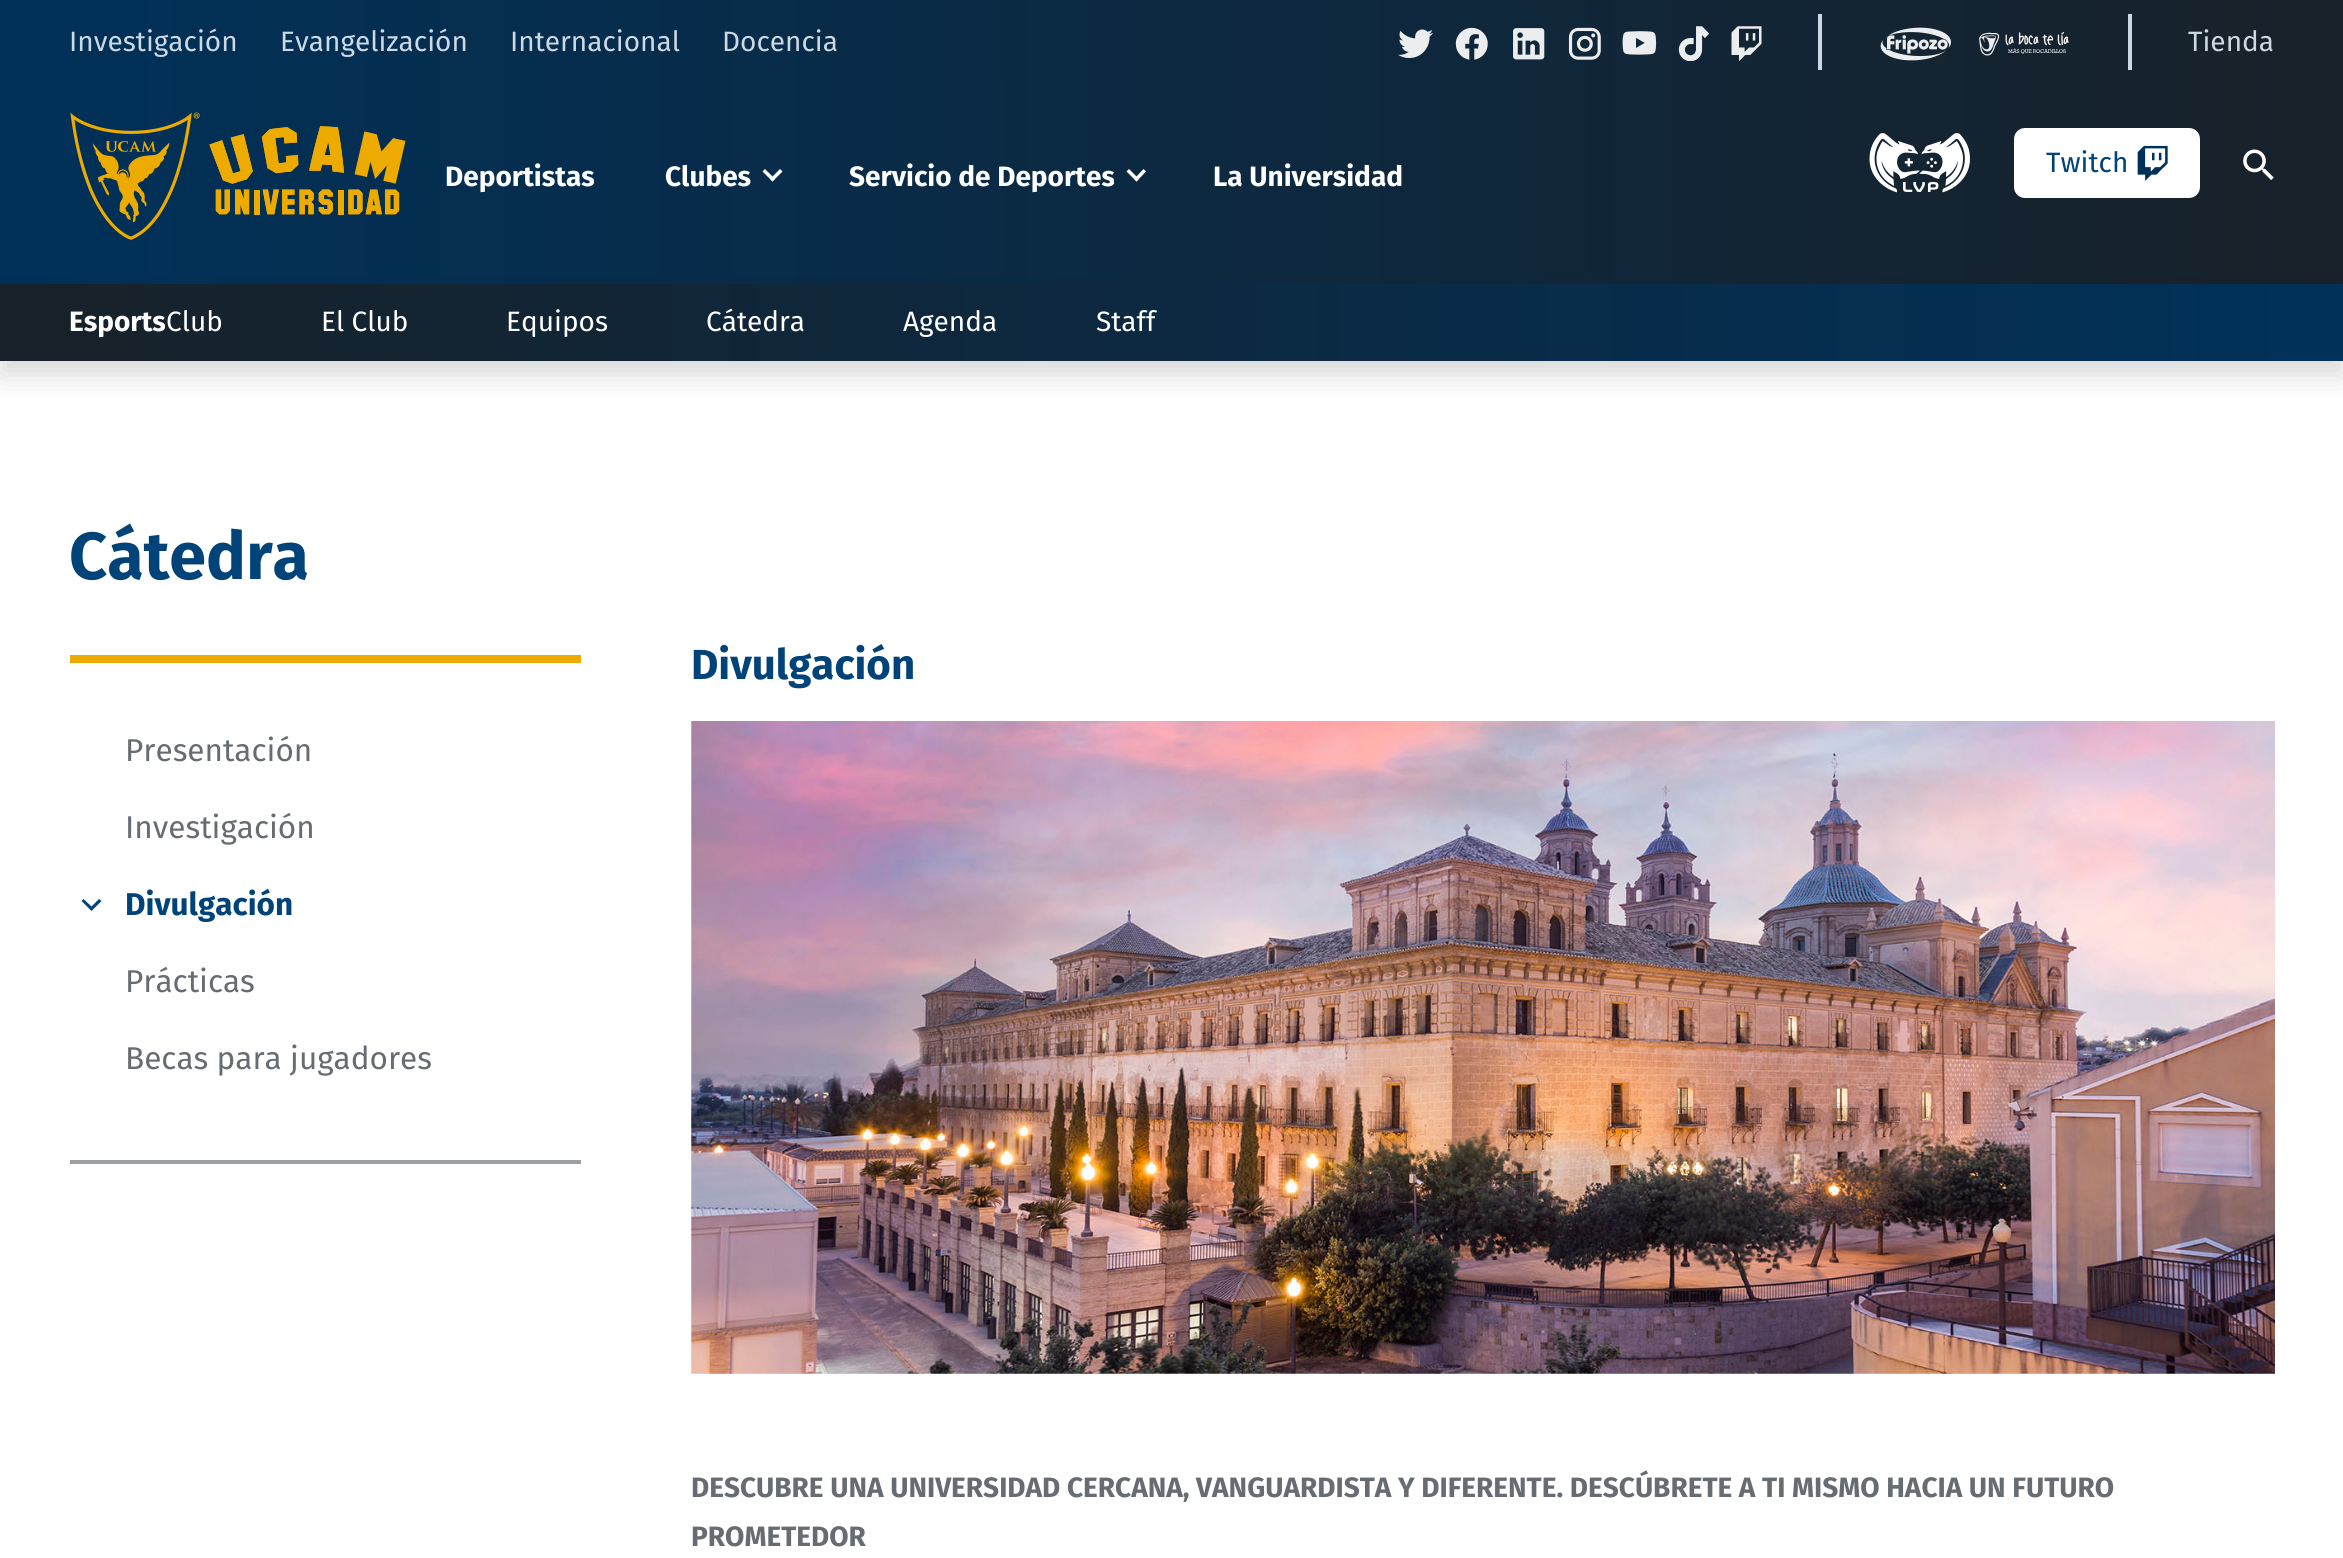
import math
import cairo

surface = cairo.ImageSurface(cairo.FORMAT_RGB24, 2343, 1558)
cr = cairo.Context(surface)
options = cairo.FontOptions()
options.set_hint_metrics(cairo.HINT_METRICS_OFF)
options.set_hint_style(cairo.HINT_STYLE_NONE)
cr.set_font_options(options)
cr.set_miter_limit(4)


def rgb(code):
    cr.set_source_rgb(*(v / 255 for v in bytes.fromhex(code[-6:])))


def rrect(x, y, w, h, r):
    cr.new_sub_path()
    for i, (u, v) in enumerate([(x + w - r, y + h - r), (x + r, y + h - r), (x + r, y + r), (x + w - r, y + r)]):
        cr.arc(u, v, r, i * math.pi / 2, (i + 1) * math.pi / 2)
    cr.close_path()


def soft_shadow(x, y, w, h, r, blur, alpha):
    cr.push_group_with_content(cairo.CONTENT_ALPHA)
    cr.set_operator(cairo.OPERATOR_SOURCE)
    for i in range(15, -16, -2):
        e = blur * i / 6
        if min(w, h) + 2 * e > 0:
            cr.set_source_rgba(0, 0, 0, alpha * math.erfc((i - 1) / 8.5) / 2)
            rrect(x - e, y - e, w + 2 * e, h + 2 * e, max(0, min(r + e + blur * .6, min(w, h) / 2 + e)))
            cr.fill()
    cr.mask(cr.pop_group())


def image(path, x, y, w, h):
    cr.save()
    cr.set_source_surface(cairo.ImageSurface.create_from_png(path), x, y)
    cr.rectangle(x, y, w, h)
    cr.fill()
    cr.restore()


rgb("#ffffff")
cr.paint()
gradient = cairo.LinearGradient(2343, 179, -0.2, 181)
gradient.add_color_stop_rgba(0, 0.094, 0.129, 0.161, 1)
gradient.add_color_stop_rgba(1, 0, 0.192, 0.349, 1)
cr.set_source(gradient)
cr.rectangle(0, 0, 2343, 284)
cr.fill()
image("img/1.png", 1398, 29, 35, 29)
image("img/2.png", 1455, 27, 33, 33)
image("img/3.png", 1513, 28, 32, 32)
image("img/4.png", 1568, 27, 33, 33)
image("img/5.png", 1622, 31, 35, 24)
image("img/6.png", 1678, 26, 32, 35)
rgb("#ccd9e4")
cr.rectangle(1818, 14, 4, 56)
cr.fill()
image("img/7.png", 1731, 26, 31, 35)
image("img/8.png", 1880, 27, 71, 34)
cr.rectangle(2128, 14, 4, 56)
cr.fill()
image("img/9.png", 1979, 32, 90, 24)
image("img/10.png", 70, 112, 336, 128)
rgb("#ffffff")
cr.new_path()
cr.move_to(780, 169)
cr.line_to(782.5, 171.5)
cr.line_to(772.5, 181.5)
cr.line_to(770, 179)
cr.close_path()
cr.fill()
cr.new_path()
cr.move_to(765, 169)
cr.line_to(775, 179)
cr.line_to(772.5, 181.5)
cr.line_to(762.5, 171.5)
cr.close_path()
cr.fill()
cr.new_path()
cr.move_to(1143.5, 169)
cr.line_to(1146, 171.5)
cr.line_to(1136.5, 181.5)
cr.line_to(1134, 179)
cr.close_path()
cr.fill()
cr.new_path()
cr.move_to(1129, 169)
cr.line_to(1139, 179)
cr.line_to(1136.5, 181.5)
cr.line_to(1126.5, 171.5)
cr.close_path()
cr.fill()
image("img/11.png", 1869, 133, 101, 60)
rrect(2016, 130, 182, 66, 9)
cr.fill_preserve()
cr.set_line_width(4)
cr.stroke()
image("img/12.png", 2137, 145, 31, 36)
image("img/13.png", 2243, 149, 31, 31)
rgb("#000000")
soft_shadow(0, 298, 2343, 77, 0, 14, 0.15)
gradient = cairo.LinearGradient(0, 321, 2343, 323)
gradient.add_color_stop_rgba(0, 0.094, 0.129, 0.161, 1)
gradient.add_color_stop_rgba(1, 0, 0.192, 0.349, 1)
cr.set_source(gradient)
cr.rectangle(0, 284, 2343, 77)
cr.fill()
rgb("#edab00")
cr.rectangle(70, 655, 511, 8)
cr.fill()
rgb("#9ca0a3")
cr.rectangle(70, 1160, 511, 4)
cr.fill()
rgb("#004379")
cr.new_path()
cr.move_to(83.5, 899)
cr.line_to(81.5, 901)
cr.line_to(91.5, 911)
cr.line_to(101.5, 901)
cr.line_to(99, 899)
cr.line_to(91.5, 906.5)
cr.close_path()
cr.fill()
image("img/14.png", 691, 721, 1584, 653)
cr.select_font_face("Fira Sans")
cr.set_font_size(28)
rgb("#ccd9e4")
for x, y, s in [
    (69, 51, "Investigación"),
    (280, 51, "Evangelización"),
    (510, 51, "Internacional"),
    (722, 51, "Docencia"),
    (2188, 51, "Tienda"),
]:
    cr.move_to(x, y)
    cr.show_text(s)
cr.select_font_face("Fira Sans", cairo.FONT_SLANT_NORMAL, cairo.FONT_WEIGHT_BOLD)
rgb("#ffffff")
for x, y, s in [
    (445, 186, "Deportistas"),
    (665, 186, "Clubes"),
    (849, 186, "Servicio de Deportes"),
    (1213, 186, "La Universidad"),
]:
    cr.move_to(x, y)
    cr.show_text(s)
cr.select_font_face("Fira Sans")
rgb("#004379")
cr.move_to(2046, 172)
cr.show_text("Twitch")
cr.select_font_face("Fira Sans", cairo.FONT_SLANT_NORMAL, cairo.FONT_WEIGHT_BOLD)
rgb("#ffffff")
cr.move_to(69, 331)
cr.show_text("Esports")
cr.select_font_face("Fira Sans")
for x, y, s in [
    (166, 331, "Club"),
    (321, 331, "El Club"),
    (506, 331, "Equipos"),
    (706, 331, "Cátedra"),
    (903, 331, "Agenda"),
    (1096, 331, "Staff"),
]:
    cr.move_to(x, y)
    cr.show_text(s)
cr.select_font_face("Fira Sans", cairo.FONT_SLANT_NORMAL, cairo.FONT_WEIGHT_BOLD)
cr.set_font_size(66.5)
rgb("#004379")
cr.move_to(69, 579)
cr.show_text("Cátedra")
cr.select_font_face("Fira Sans")
cr.set_font_size(31.5)
rgb("#666c72")
cr.move_to(125, 761)
cr.show_text("Presentación")
cr.move_to(125, 838)
cr.show_text("Investigación")
cr.select_font_face("Fira Sans", cairo.FONT_SLANT_NORMAL, cairo.FONT_WEIGHT_BOLD)
rgb("#004379")
cr.move_to(125, 915)
cr.show_text("Divulgación")
cr.select_font_face("Fira Sans")
rgb("#666c72")
cr.move_to(125, 992)
cr.show_text("Prácticas")
cr.move_to(125, 1069)
cr.show_text("Becas para jugadores")
cr.select_font_face("Fira Sans", cairo.FONT_SLANT_NORMAL, cairo.FONT_WEIGHT_BOLD)
cr.set_font_size(42)
rgb("#004379")
cr.move_to(691, 679)
cr.show_text("Divulgación")
cr.set_font_size(28)
rgb("#666c72")
cr.move_to(691, 1497)
cr.show_text("DESCUBRE UNA UNIVERSIDAD CERCANA, VANGUARDISTA Y DIFERENTE. DESCÚBRETE A TI MISMO HACIA UN FUTURO")
cr.move_to(691, 1546)
cr.show_text("PROMETEDOR")
surface.write_to_png("page.png")
